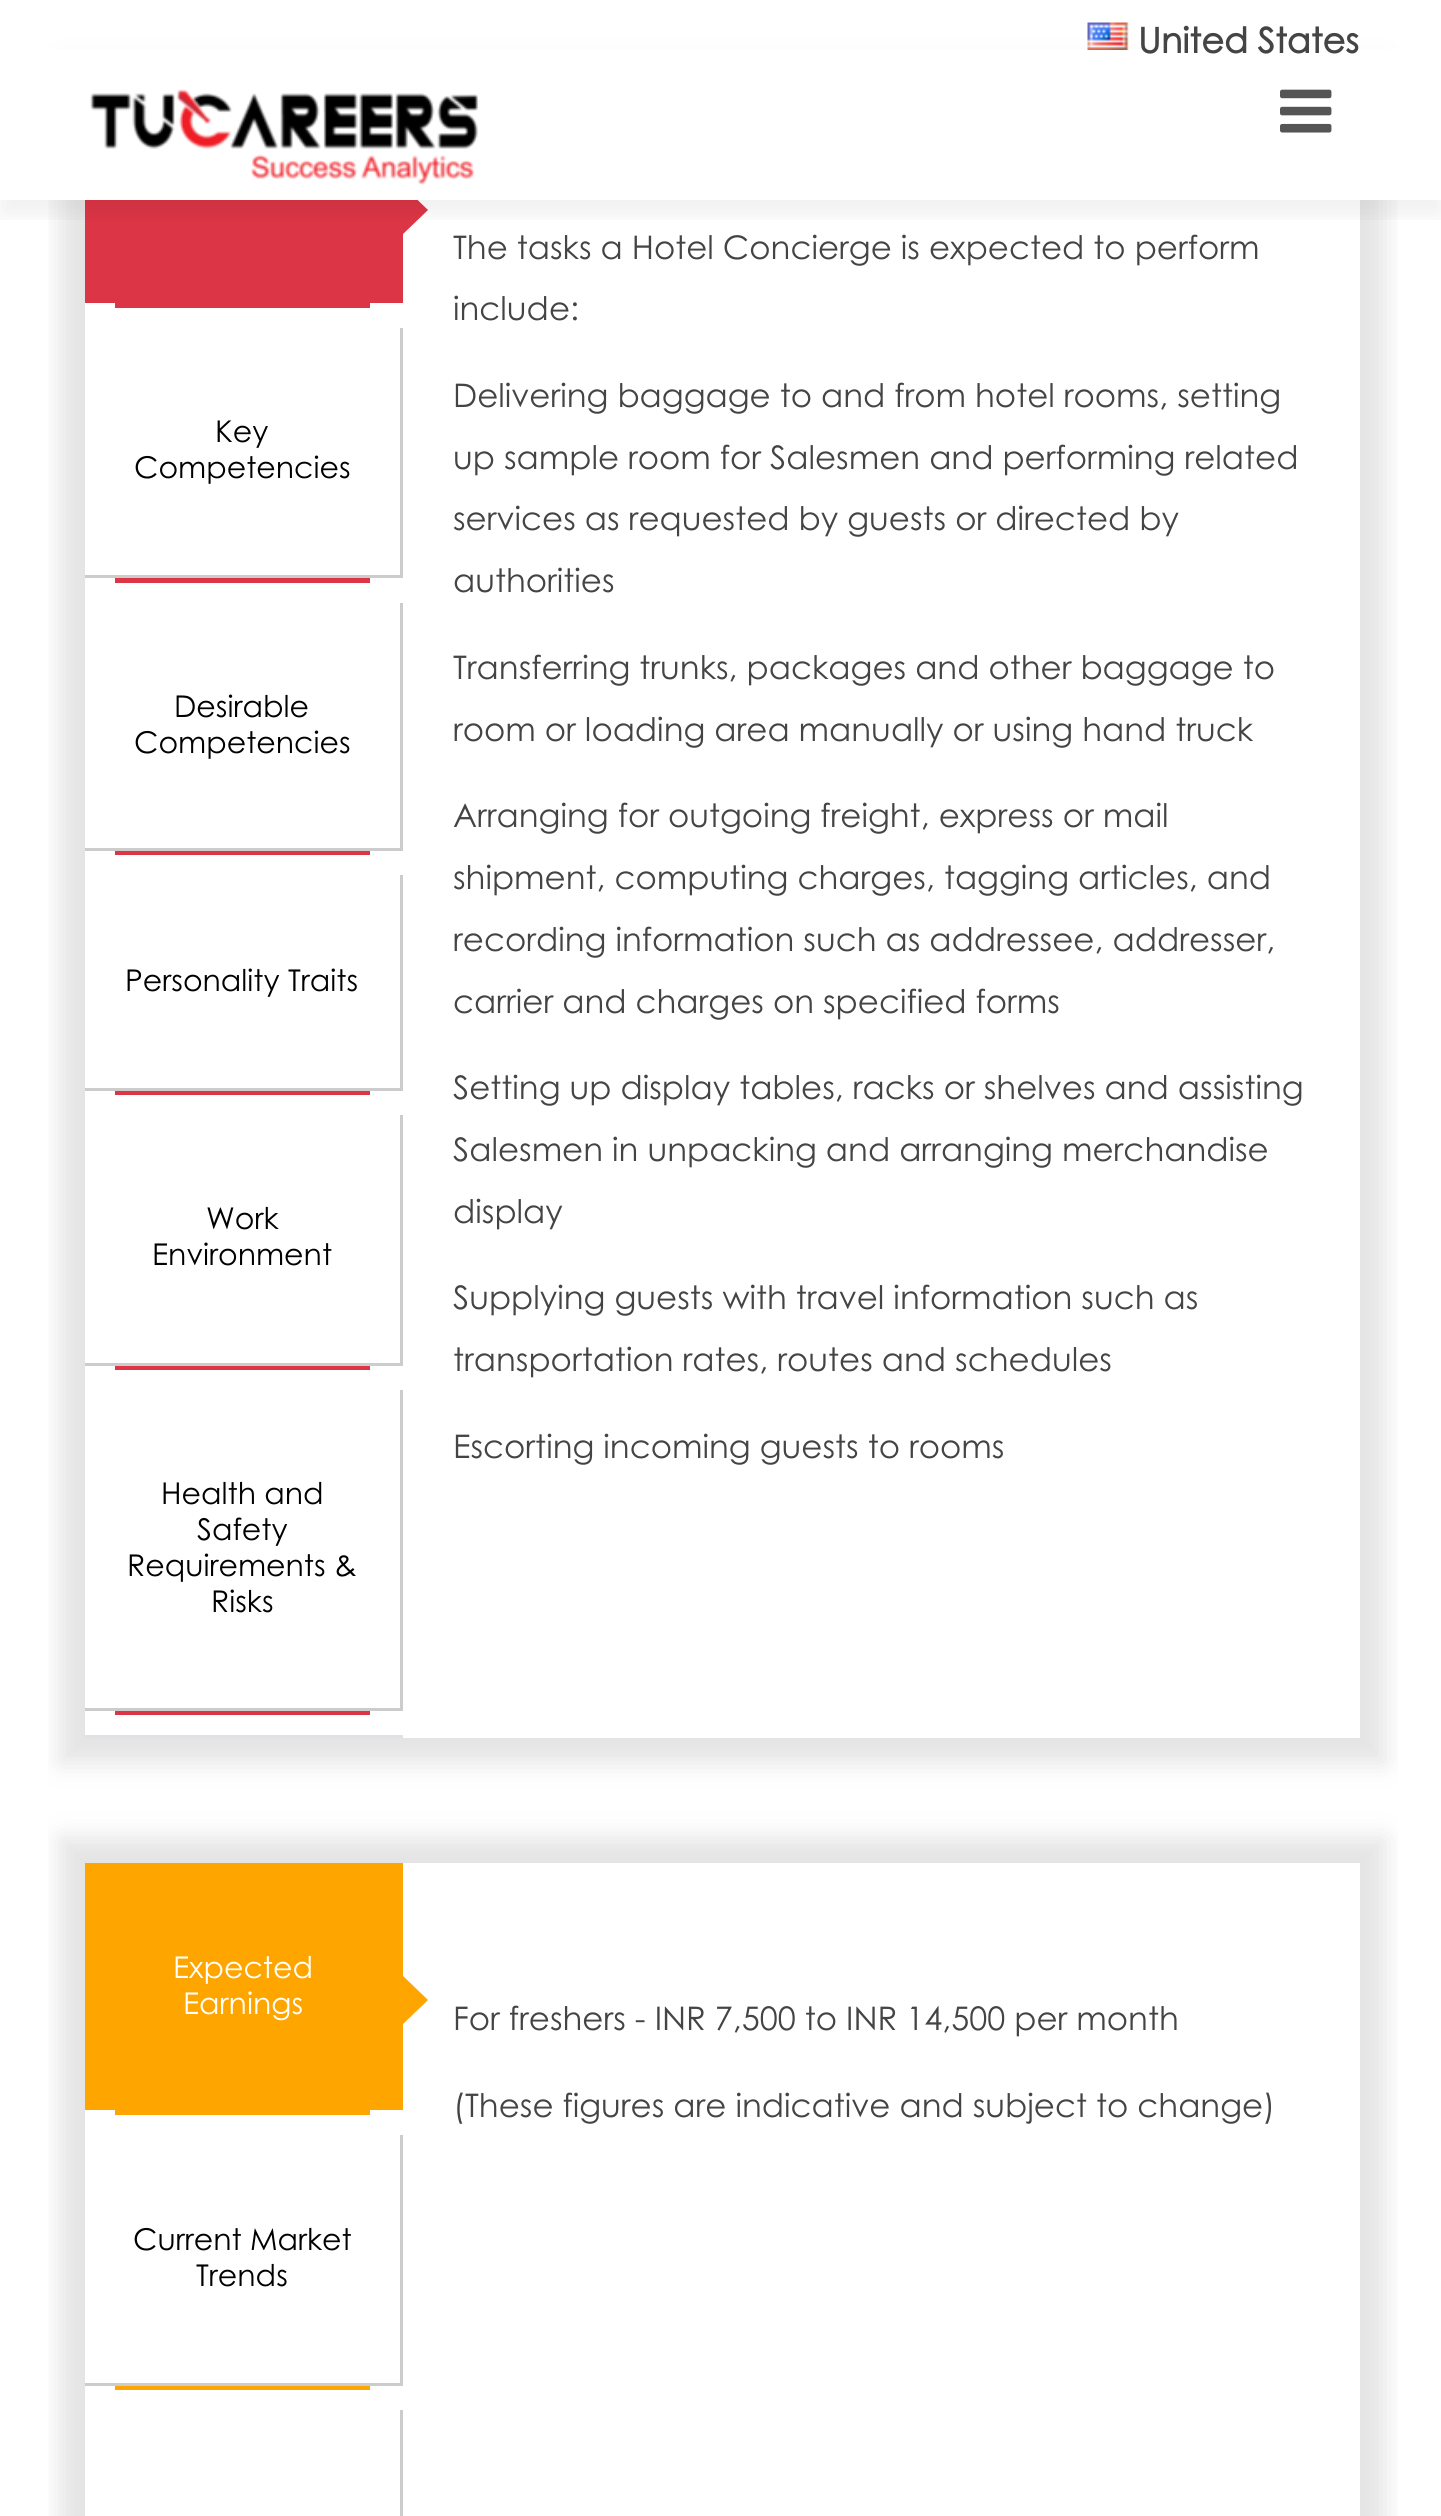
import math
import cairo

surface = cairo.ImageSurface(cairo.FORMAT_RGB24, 1441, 2516)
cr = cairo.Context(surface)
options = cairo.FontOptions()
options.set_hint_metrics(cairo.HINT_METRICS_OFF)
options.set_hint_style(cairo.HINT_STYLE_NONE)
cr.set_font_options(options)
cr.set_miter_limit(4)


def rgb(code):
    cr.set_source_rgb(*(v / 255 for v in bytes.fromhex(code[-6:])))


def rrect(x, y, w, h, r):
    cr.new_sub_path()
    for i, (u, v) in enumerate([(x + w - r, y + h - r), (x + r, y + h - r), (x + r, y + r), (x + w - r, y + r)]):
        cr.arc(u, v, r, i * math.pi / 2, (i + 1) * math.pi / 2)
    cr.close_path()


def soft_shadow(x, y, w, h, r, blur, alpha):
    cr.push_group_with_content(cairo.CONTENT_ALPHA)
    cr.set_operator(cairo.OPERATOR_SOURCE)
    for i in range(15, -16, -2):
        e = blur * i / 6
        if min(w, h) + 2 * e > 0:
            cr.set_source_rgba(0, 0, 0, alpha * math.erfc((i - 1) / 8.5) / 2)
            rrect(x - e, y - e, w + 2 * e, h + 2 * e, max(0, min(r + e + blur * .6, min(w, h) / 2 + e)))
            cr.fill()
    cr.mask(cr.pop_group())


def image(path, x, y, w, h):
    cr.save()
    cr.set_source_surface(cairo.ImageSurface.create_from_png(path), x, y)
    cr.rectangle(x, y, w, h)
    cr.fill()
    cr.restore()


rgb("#ffffff")
cr.paint()
cr.save()
cr.rectangle(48, 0, 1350, 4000)
cr.clip()
cr.set_fill_rule(cairo.FILL_RULE_EVEN_ODD)
cr.new_path()
cr.move_to(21, 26)
cr.line_to(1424, 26)
cr.line_to(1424, 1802)
cr.line_to(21, 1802)
cr.close_path()
cr.move_to(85, 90)
cr.line_to(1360, 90)
cr.line_to(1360, 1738)
cr.line_to(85, 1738)
cr.close_path()
cr.clip()
rgb("#bdbaba")
soft_shadow(60, 65, 1325, 1698, 0, 12.5, 0.4)
cr.restore()
rgb("#dc3545")
cr.rectangle(85, 200, 318, 103)
cr.fill()
cr.new_path()
cr.move_to(402, 235)
cr.line_to(402, 185)
cr.line_to(428, 210)
cr.close_path()
cr.fill()
rgb("#ffffff")
cr.rectangle(48, 49, 1350, 151)
cr.fill()
image("img/1.png", 1087, 22, 42, 28)
cr.save()
cr.rectangle(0, 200, 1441, 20)
cr.clip()
rgb("#000000")
soft_shadow(0, 90, 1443, 125, 0, 11, 0.06)
cr.restore()
image("img/2.png", 90, 89, 388, 96)
for x, y, w, h, color in [
    (85, 1735, 318, 3, "#dee2e6"),
    (115, 303, 255, 5, "#dc3545"),
    (400, 328, 3, 250, "#cccccc"),
    (85, 575, 318, 3, "#cccccc"),
    (115, 578, 255, 5, "#dc3545"),
    (400, 603, 3, 247, "#cccccc"),
    (85, 848, 318, 3, "#cccccc"),
    (115, 851, 255, 4, "#dc3545"),
    (400, 875, 3, 215, "#cccccc"),
    (85, 1088, 318, 3, "#cccccc"),
    (115, 1091, 255, 4, "#dc3545"),
    (400, 1115, 3, 250, "#cccccc"),
    (85, 1363, 318, 3, "#cccccc"),
    (115, 1366, 255, 4, "#dc3545"),
    (400, 1390, 3, 320, "#cccccc"),
    (85, 1708, 318, 3, "#cccccc"),
    (115, 1711, 255, 4, "#dc3545"),
]:
    rgb(color)
    cr.rectangle(x, y, w, h)
    cr.fill()
cr.save()
cr.rectangle(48, 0, 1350, 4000)
cr.clip()
cr.set_fill_rule(cairo.FILL_RULE_EVEN_ODD)
cr.new_path()
cr.move_to(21, 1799)
cr.line_to(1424, 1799)
cr.line_to(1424, 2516)
cr.line_to(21, 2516)
cr.close_path()
cr.move_to(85, 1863)
cr.line_to(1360, 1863)
cr.line_to(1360, 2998)
cr.line_to(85, 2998)
cr.close_path()
cr.clip()
rgb("#bdbaba")
soft_shadow(60, 1838, 1325, 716, 0, 12.5, 0.4)
cr.restore()
rgb("#ffa500")
cr.rectangle(85, 1863, 318, 247)
cr.fill()
cr.new_path()
cr.move_to(402, 2025)
cr.line_to(402, 1975)
cr.line_to(428, 2000)
cr.close_path()
cr.fill()
for x, y, w, h, color in [
    (115, 2110, 255, 5, "#ffa500"),
    (400, 2135, 3, 250, "#cccccc"),
    (85, 2383, 318, 3, "#cccccc"),
    (115, 2386, 255, 4, "#ffa500"),
    (400, 2410, 3, 106, "#cccccc"),
]:
    rgb(color)
    cr.rectangle(x, y, w, h)
    cr.fill()
image("img/3.png", 1280, 89, 52, 44)
cr.select_font_face("Century Gothic", cairo.FONT_SLANT_NORMAL, cairo.FONT_WEIGHT_BOLD)
cr.set_font_size(35)
rgb("#444444")
cr.move_to(1138, 53)
cr.show_text("United States")
cr.select_font_face("Century Gothic")
cr.set_font_size(30)
rgb("#000000")
for x, y, s in [
    (215, 442, "Key"),
    (134, 478, "Competencies"),
    (174, 717, "Desirable"),
    (134, 753, "Competencies"),
    (125, 991, "Personality Traits"),
    (206, 1229, "Work"),
    (152, 1265, "Environment"),
    (161, 1504, "Health and"),
    (197, 1540, "Safety"),
    (127, 1576, "Requirements &"),
    (211, 1612, "Risks"),
]:
    cr.move_to(x, y)
    cr.show_text(s)
cr.set_font_size(32.5)
rgb("#444444")
for x, y, s in [
    (453, 259, "The tasks a Hotel Concierge is expected to perform"),
    (453, 320, "include:"),
    (453, 407, "Delivering baggage to and from hotel rooms, setting"),
    (453, 469, "up sample room for Salesmen and performing related"),
    (453, 530, "services as requested by guests or directed by"),
    (453, 592, "authorities"),
    (453, 679, "Transferring trunks, packages and other baggage to"),
    (453, 741, "room or loading area manually or using hand truck"),
    (453, 827, "Arranging for outgoing freight, express or mail"),
    (453, 889, "shipment, computing charges, tagging articles, and"),
    (453, 951, "recording information such as addressee, addresser,"),
    (453, 1013, "carrier and charges on specified forms"),
    (453, 1099, "Setting up display tables, racks or shelves and assisting"),
    (453, 1161, "Salesmen in unpacking and arranging merchandise"),
    (453, 1223, "display"),
    (453, 1309, "Supplying guests with travel information such as"),
    (453, 1371, "transportation rates, routes and schedules"),
    (453, 1458, "Escorting incoming guests to rooms"),
]:
    cr.move_to(x, y)
    cr.show_text(s)
cr.set_font_size(30)
rgb("#ffffff")
cr.move_to(173, 1978)
cr.show_text("Expected")
cr.move_to(183, 2014)
cr.show_text("Earnings")
rgb("#000000")
cr.move_to(133, 2250)
cr.show_text("Current Market")
cr.move_to(196, 2286)
cr.show_text("Trends")
cr.set_font_size(32.5)
rgb("#444444")
cr.move_to(453, 2030)
cr.show_text("For freshers - INR 7,500 to INR 14,500 per month")
cr.move_to(453, 2117)
cr.show_text("(These figures are indicative and subject to change)")
surface.write_to_png("page.png")
